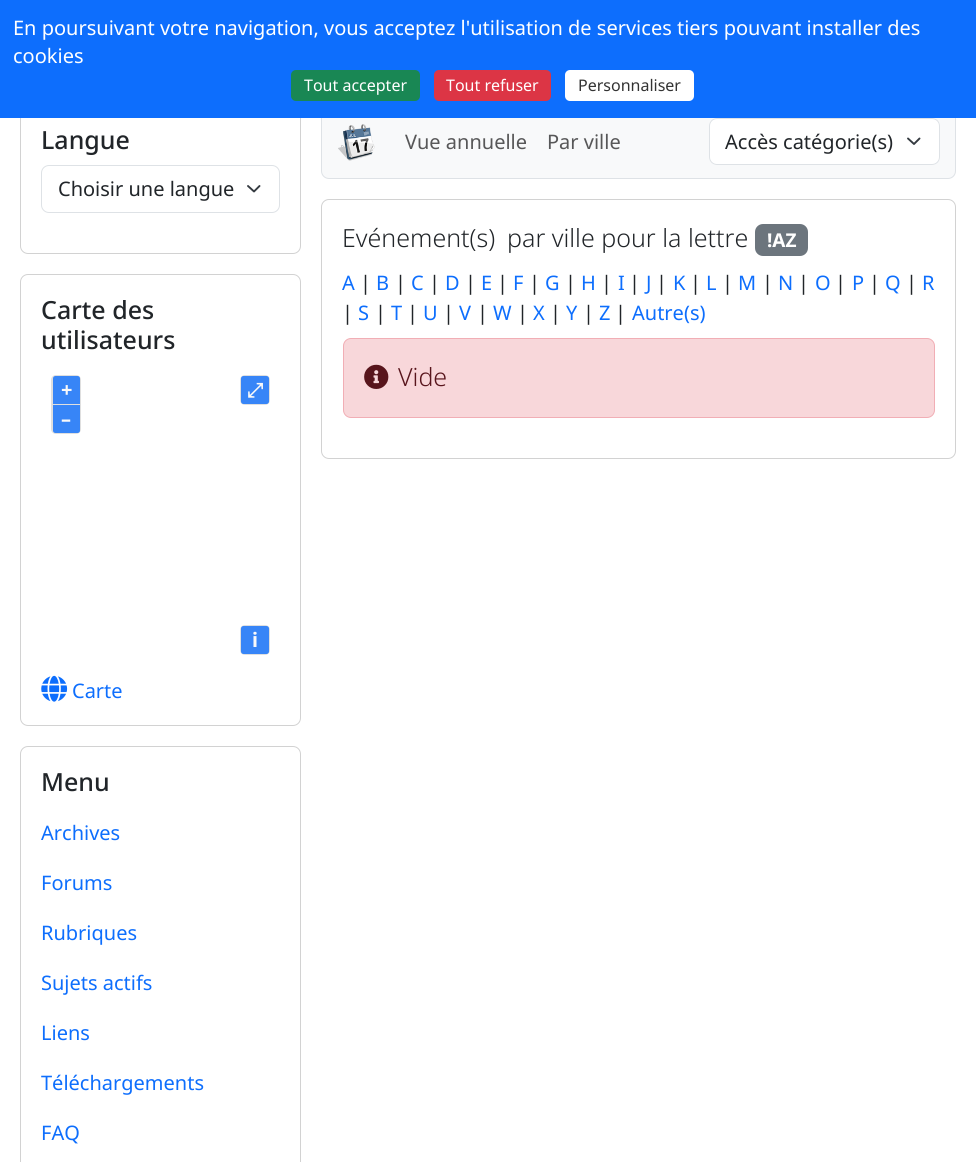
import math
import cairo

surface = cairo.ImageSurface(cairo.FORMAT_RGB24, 976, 1162)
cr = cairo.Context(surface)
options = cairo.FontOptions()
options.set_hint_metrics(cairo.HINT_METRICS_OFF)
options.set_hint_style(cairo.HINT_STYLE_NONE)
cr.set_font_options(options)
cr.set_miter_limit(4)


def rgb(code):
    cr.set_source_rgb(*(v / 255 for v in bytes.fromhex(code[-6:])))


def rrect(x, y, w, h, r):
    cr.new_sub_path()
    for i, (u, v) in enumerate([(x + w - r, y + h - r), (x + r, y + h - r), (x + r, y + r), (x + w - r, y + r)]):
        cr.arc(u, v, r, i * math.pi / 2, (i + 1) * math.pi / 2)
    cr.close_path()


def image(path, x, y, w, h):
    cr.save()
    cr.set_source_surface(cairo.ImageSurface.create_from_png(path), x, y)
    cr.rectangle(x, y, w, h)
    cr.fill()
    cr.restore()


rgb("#ffffff")
cr.paint()
rrect(20.5, 104.5, 280, 149, 7.5)
rgb("#d2d2d2")
cr.set_line_width(1)
cr.stroke()
rgb("#f8f9fa")
rrect(321.5, 104.5, 634, 74, 7.5)
cr.fill_preserve()
rgb("#dee2e6")
cr.stroke()
rgb("#0d6efd")
cr.rectangle(0, 0, 976, 118)
cr.fill()
rgb("#198754")
rrect(291, 70, 129, 31, 5)
cr.fill()
rgb("#dc3545")
rrect(434, 70, 117, 31, 5)
cr.fill()
rgb("#ffffff")
rrect(565, 70, 129, 31, 5)
cr.fill()
cr.new_path()
cr.move_to(248, 186)
cr.line_to(254, 191.5)
cr.line_to(259.5, 186)
rgb("#343a40")
cr.set_line_width(1.9)
cr.set_line_cap(cairo.LINE_CAP_ROUND)
cr.set_line_join(cairo.LINE_JOIN_ROUND)
cr.stroke()
rrect(41.5, 165.5, 238, 47, 7.5)
rgb("#dee2e6")
cr.set_line_width(1)
cr.set_line_cap(cairo.LINE_CAP_BUTT)
cr.set_line_join(cairo.LINE_JOIN_MITER)
cr.stroke()
rrect(20.5, 274.5, 280, 451, 7.5)
rgb("#d2d2d2")
cr.stroke()
rgb("#dfdfdf")
rrect(51, 375, 30, 59, 5)
cr.fill()
rgb("#3785f7")
cr.new_path()
cr.move_to(55.5, 376)
cr.line_to(77.5, 376)
cr.curve_to(79, 376, 80, 377, 80, 378.5)
cr.line_to(80, 404)
cr.line_to(53, 404)
cr.line_to(53, 378.5)
cr.curve_to(53, 377, 54, 376, 55.5, 376)
cr.close_path()
cr.fill()
cr.new_path()
cr.move_to(53, 405)
cr.line_to(80, 405)
cr.line_to(80, 430.5)
cr.curve_to(80, 432, 79, 433, 77.5, 433)
cr.line_to(55.5, 433)
cr.curve_to(54, 433, 53, 432, 53, 430.5)
cr.close_path()
cr.fill()
rgb("#dfdfdf")
rrect(240, 375, 30, 30, 5)
cr.fill()
rgb("#3785f7")
rrect(241, 376, 28, 28, 2.5)
cr.fill()
rgb("#dfdfdf")
rrect(240, 625, 30, 30, 5)
cr.fill()
rgb("#3785f7")
rrect(241, 626, 28, 28, 2.5)
cr.fill()
image("img/1.png", 41, 675, 27, 27)
rrect(20.5, 746.5, 280, 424, 7.5)
rgb("#d2d2d2")
cr.stroke()
image("img/2.png", 338, 124, 37, 37)
rgb("#ffffff")
rrect(709, 118, 231, 47, 8)
cr.fill()
cr.new_path()
cr.move_to(908, 138.5)
cr.line_to(914, 144)
cr.line_to(919.5, 138.5)
rgb("#343a40")
cr.set_line_width(1.9)
cr.set_line_cap(cairo.LINE_CAP_ROUND)
cr.set_line_join(cairo.LINE_JOIN_ROUND)
cr.stroke()
rrect(709.5, 118.5, 230, 46, 7.5)
rgb("#dee2e6")
cr.set_line_width(1)
cr.set_line_cap(cairo.LINE_CAP_BUTT)
cr.set_line_join(cairo.LINE_JOIN_MITER)
cr.stroke()
rrect(321.5, 199.5, 634, 259, 7.5)
rgb("#d2d2d2")
cr.stroke()
rgb("#6c757d")
rrect(755, 224, 53, 32, 8)
cr.fill()
rgb("#f8d7da")
rrect(343.5, 338.5, 591, 79, 7.5)
cr.fill_preserve()
rgb("#f1aeb5")
cr.stroke()
image("img/3.png", 364, 364, 25, 25)
cr.select_font_face("Noto Sans")
cr.set_font_size(20)
rgb("#ffffff")
cr.move_to(13, 35)
cr.show_text("En poursuivant votre navigation, vous acceptez l'utilisation de services tiers pouvant installer des")
cr.move_to(13, 63)
cr.show_text("cookies")
cr.set_font_size(16)
cr.move_to(304, 91)
cr.show_text("Tout accepter")
cr.move_to(446, 91)
cr.show_text("Tout refuser")
rgb("#333333")
cr.move_to(578, 91)
cr.show_text("Personnaliser")
cr.select_font_face("Noto Sans Medium")
cr.set_font_size(25)
rgb("#212529")
cr.move_to(41, 149)
cr.show_text("Langue")
cr.select_font_face("Noto Sans")
cr.set_font_size(20)
cr.move_to(58, 196)
cr.show_text("Choisir une langue")
cr.select_font_face("Noto Sans Medium")
cr.set_font_size(25)
cr.move_to(41, 319)
cr.show_text("Carte des")
cr.move_to(41, 349)
cr.show_text("utilisateurs")
cr.select_font_face("Noto Sans", cairo.FONT_SLANT_NORMAL, cairo.FONT_WEIGHT_BOLD)
cr.set_font_size(20)
rgb("#f9f9f9")
cr.move_to(61, 397)
cr.show_text("+")
cr.move_to(61, 426)
cr.show_text("–")
cr.select_font_face("FreeSerif", cairo.FONT_SLANT_NORMAL, cairo.FONT_WEIGHT_BOLD)
cr.move_to(247, 397)
cr.show_text("⤢")
cr.select_font_face("Noto Sans", cairo.FONT_SLANT_NORMAL, cairo.FONT_WEIGHT_BOLD)
cr.move_to(252, 647)
cr.show_text("i")
cr.select_font_face("Noto Sans")
rgb("#0d6efd")
cr.move_to(72, 698)
cr.show_text("Carte")
cr.select_font_face("Noto Sans Medium")
cr.set_font_size(25)
rgb("#212529")
cr.move_to(41, 791)
cr.show_text("Menu")
cr.select_font_face("Noto Sans")
cr.set_font_size(20)
rgb("#0d6efd")
for x, y, s in [
    (41, 840, "Archives"),
    (41, 890, "Forums"),
    (41, 940, "Rubriques"),
    (41, 990, "Sujets actifs"),
    (41, 1040, "Liens"),
    (41, 1090, "Téléchargements"),
    (41, 1140, "FAQ"),
]:
    cr.move_to(x, y)
    cr.show_text(s)
rgb("#575758")
cr.move_to(405, 149)
cr.show_text("Vue annuelle")
cr.move_to(547, 149)
cr.show_text("Par ville")
rgb("#212529")
cr.move_to(725, 149)
cr.show_text("Accès catégorie(s)")
cr.select_font_face("Noto Sans Light")
cr.set_font_size(25)
cr.move_to(342, 247)
cr.show_text("Evénement(s)")
cr.move_to(507, 247)
cr.show_text("par ville pour la lettre")
cr.select_font_face("Noto Sans", cairo.FONT_SLANT_NORMAL, cairo.FONT_WEIGHT_BOLD)
cr.set_font_size(19)
rgb("#ffffff")
cr.move_to(767, 247)
cr.show_text("!AZ")
cr.select_font_face("Noto Sans")
cr.set_font_size(20)
rgb("#0d6efd")
cr.move_to(342, 290)
cr.show_text("A")
rgb("#212529")
cr.move_to(360, 290)
cr.show_text("|")
rgb("#0d6efd")
cr.move_to(376, 290)
cr.show_text("B")
rgb("#212529")
cr.move_to(395, 290)
cr.show_text("|")
rgb("#0d6efd")
cr.move_to(411, 290)
cr.show_text("C")
rgb("#212529")
cr.move_to(429, 290)
cr.show_text("|")
rgb("#0d6efd")
cr.move_to(445, 290)
cr.show_text("D")
rgb("#212529")
cr.move_to(465, 290)
cr.show_text("|")
rgb("#0d6efd")
cr.move_to(481, 290)
cr.show_text("E")
rgb("#212529")
cr.move_to(497, 290)
cr.show_text("|")
rgb("#0d6efd")
cr.move_to(513, 290)
cr.show_text("F")
rgb("#212529")
cr.move_to(529, 290)
cr.show_text("|")
rgb("#0d6efd")
cr.move_to(545, 290)
cr.show_text("G")
rgb("#212529")
cr.move_to(565, 290)
cr.show_text("|")
rgb("#0d6efd")
cr.move_to(581, 290)
cr.show_text("H")
rgb("#212529")
cr.move_to(601, 290)
cr.show_text("|")
rgb("#0d6efd")
cr.move_to(618, 290)
cr.show_text("I")
rgb("#212529")
cr.move_to(629, 290)
cr.show_text("|")
rgb("#0d6efd")
cr.move_to(646, 290)
cr.show_text("J")
rgb("#212529")
cr.move_to(656, 290)
cr.show_text("|")
rgb("#0d6efd")
cr.move_to(673, 290)
cr.show_text("K")
rgb("#212529")
cr.move_to(690, 290)
cr.show_text("|")
rgb("#0d6efd")
cr.move_to(706, 290)
cr.show_text("L")
rgb("#212529")
cr.move_to(722, 290)
cr.show_text("|")
rgb("#0d6efd")
cr.move_to(738, 290)
cr.show_text("M")
rgb("#212529")
cr.move_to(762, 290)
cr.show_text("|")
rgb("#0d6efd")
cr.move_to(778, 290)
cr.show_text("N")
rgb("#212529")
cr.move_to(798, 290)
cr.show_text("|")
rgb("#0d6efd")
cr.move_to(815, 290)
cr.show_text("O")
rgb("#212529")
cr.move_to(835, 290)
cr.show_text("|")
rgb("#0d6efd")
cr.move_to(852, 290)
cr.show_text("P")
rgb("#212529")
cr.move_to(869, 290)
cr.show_text("|")
rgb("#0d6efd")
cr.move_to(885, 290)
cr.show_text("Q")
rgb("#212529")
cr.move_to(906, 290)
cr.show_text("|")
rgb("#0d6efd")
cr.move_to(922, 290)
cr.show_text("R")
rgb("#212529")
cr.move_to(342, 320)
cr.show_text("|")
rgb("#0d6efd")
cr.move_to(358, 320)
cr.show_text("S")
rgb("#212529")
cr.move_to(375, 320)
cr.show_text("|")
rgb("#0d6efd")
cr.move_to(391, 320)
cr.show_text("T")
rgb("#212529")
cr.move_to(407, 320)
cr.show_text("|")
rgb("#0d6efd")
cr.move_to(423, 320)
cr.show_text("U")
rgb("#212529")
cr.move_to(443, 320)
cr.show_text("|")
rgb("#0d6efd")
cr.move_to(459, 320)
cr.show_text("V")
rgb("#212529")
cr.move_to(477, 320)
cr.show_text("|")
rgb("#0d6efd")
cr.move_to(493, 320)
cr.show_text("W")
rgb("#212529")
cr.move_to(517, 320)
cr.show_text("|")
rgb("#0d6efd")
cr.move_to(533, 320)
cr.show_text("X")
rgb("#212529")
cr.move_to(550, 320)
cr.show_text("|")
rgb("#0d6efd")
cr.move_to(566, 320)
cr.show_text("Y")
rgb("#212529")
cr.move_to(583, 320)
cr.show_text("|")
rgb("#0d6efd")
cr.move_to(599, 320)
cr.show_text("Z")
rgb("#212529")
cr.move_to(615, 320)
cr.show_text("|")
rgb("#0d6efd")
cr.move_to(632, 320)
cr.show_text("Autre(s)")
cr.select_font_face("Noto Sans Light")
cr.set_font_size(25)
rgb("#58151c")
cr.move_to(398, 386)
cr.show_text("Vide")
surface.write_to_png("page.png")
